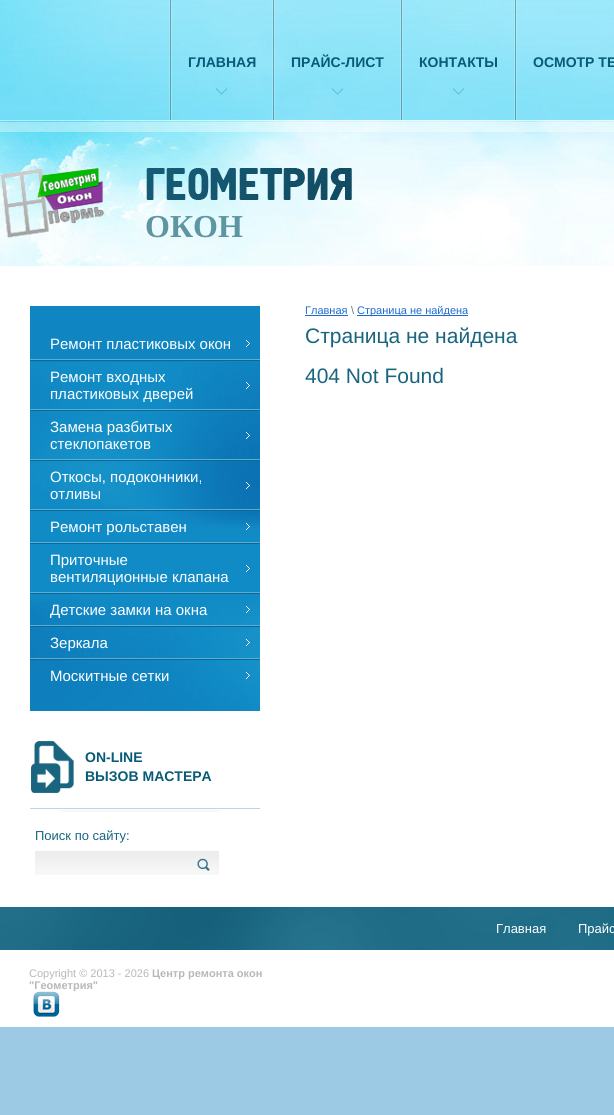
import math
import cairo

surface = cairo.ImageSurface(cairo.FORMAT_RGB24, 614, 1115)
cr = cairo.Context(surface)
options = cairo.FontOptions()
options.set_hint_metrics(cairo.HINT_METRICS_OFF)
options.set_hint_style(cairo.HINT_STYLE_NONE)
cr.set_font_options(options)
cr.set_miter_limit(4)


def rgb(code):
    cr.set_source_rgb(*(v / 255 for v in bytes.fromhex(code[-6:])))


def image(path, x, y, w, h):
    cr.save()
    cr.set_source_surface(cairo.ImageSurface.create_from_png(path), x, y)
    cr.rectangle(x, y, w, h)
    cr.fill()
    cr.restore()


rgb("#9cc9e3")
cr.paint()
image("img/1.png", 0, 0, 614, 266)
image("img/2.png", 169, 0, 3, 120)
image("img/3.png", 216, 88, 11, 7)
image("img/4.png", 272, 0, 3, 120)
image("img/5.png", 332, 88, 11, 7)
image("img/6.png", 400, 0, 3, 120)
image("img/7.png", 453, 88, 11, 7)
image("img/8.png", 514, 0, 3, 120)
image("img/9.png", 1, 168, 103, 70)
image("img/10.png", 146, 168, 206, 32)
rgb("#ffffff")
cr.rectangle(0, 266, 614, 641)
cr.fill()
rgb("#0f85c2")
cr.rectangle(30, 306, 230, 56)
cr.fill()
image("img/11.png", 30, 362, 230, 349)
image("img/12.png", 246, 340, 4, 7)
image("img/13.png", 30, 359, 230, 2)
image("img/14.png", 246, 382, 4, 7)
image("img/13.png", 30, 409, 230, 2)
image("img/15.png", 246, 432, 4, 7)
image("img/13.png", 30, 459, 230, 2)
image("img/16.png", 246, 482, 4, 7)
image("img/13.png", 30, 509, 230, 2)
image("img/17.png", 246, 523, 4, 7)
image("img/13.png", 30, 542, 230, 2)
image("img/18.png", 246, 565, 4, 7)
image("img/13.png", 30, 592, 230, 2)
image("img/19.png", 246, 606, 4, 7)
image("img/13.png", 30, 625, 230, 2)
image("img/20.png", 246, 639, 4, 7)
image("img/13.png", 30, 658, 230, 2)
image("img/21.png", 246, 672, 4, 7)
image("img/22.png", 30, 808, 230, 4)
image("img/23.png", 31, 741, 43, 52)
image("img/24.png", 35, 851, 184, 24)
for x, y, w, h, color in [
    (305, 315, 43, 1, "#1c6cd0"),
    (357, 315, 111, 1, "#1c6cd0"),
    (0, 950, 614, 77, "#ffffff"),
]:
    rgb(color)
    cr.rectangle(x, y, w, h)
    cr.fill()
image("img/25.png", 0, 907, 614, 43)
image("img/26.png", 33, 991, 27, 26)
cr.select_font_face("Liberation Sans", cairo.FONT_SLANT_NORMAL, cairo.FONT_WEIGHT_BOLD)
cr.set_font_size(14)
rgb("#095a77")
for x, y, s in [
    (188, 67, "ГЛАВНАЯ"),
    (291, 67, "ПРАЙС-ЛИСТ"),
    (419, 67, "КОНТАКТЫ"),
    (533, 67, "ОСМОТР ТЕ"),
]:
    cr.move_to(x, y)
    cr.show_text(s)
cr.select_font_face("Liberation Serif", cairo.FONT_SLANT_NORMAL, cairo.FONT_WEIGHT_BOLD)
cr.set_font_size(32)
rgb("#5d95a1")
cr.move_to(145, 237)
cr.show_text("ОКОН")
cr.select_font_face("Liberation Sans")
cr.set_font_size(15)
rgb("#ffffff")
for x, y, s in [
    (50, 349, "Ремонт пластиковых окон"),
    (50, 382, "Ремонт входных"),
    (50, 399, "пластиковых дверей"),
    (50, 432, "Замена разбитых"),
    (50, 449, "стеклопакетов"),
    (50, 482, "Откосы, подоконники,"),
    (50, 499, "отливы"),
    (50, 532, "Ремонт рольставен"),
    (50, 565, "Приточные"),
    (50, 582, "вентиляционные клапана"),
    (50, 615, "Детские замки на окна"),
    (50, 648, "Зеркала"),
    (50, 681, "Москитные сетки"),
]:
    cr.move_to(x, y)
    cr.show_text(s)
cr.select_font_face("Liberation Sans", cairo.FONT_SLANT_NORMAL, cairo.FONT_WEIGHT_BOLD)
cr.set_font_size(14)
rgb("#095a77")
cr.move_to(85, 762)
cr.show_text("ON-LINE")
cr.move_to(85, 781)
cr.show_text("ВЫЗОВ МАСТЕРА")
cr.select_font_face("Liberation Sans")
cr.set_font_size(13)
rgb("#196580")
cr.move_to(35, 840)
cr.show_text("Поиск по сайту:")
cr.set_font_size(11)
rgb("#1c6cd0")
cr.move_to(305, 314)
cr.show_text("Главная")
rgb("#707070")
cr.move_to(351, 314)
cr.show_text("\\")
rgb("#1c6cd0")
cr.move_to(357, 314)
cr.show_text("Страница не найдена")
cr.set_font_size(21)
rgb("#196580")
cr.move_to(305, 343)
cr.show_text("Страница не найдена")
cr.move_to(305, 383)
cr.show_text("404 Not Found")
cr.set_font_size(13)
rgb("#ffffff")
cr.move_to(496, 933)
cr.show_text("Главная")
cr.move_to(578, 933)
cr.show_text("Прайс")
cr.set_font_size(11)
rgb("#b8b8b8")
cr.move_to(29, 977)
cr.show_text("Copyright © 2013 - 2026")
cr.select_font_face("Liberation Sans", cairo.FONT_SLANT_NORMAL, cairo.FONT_WEIGHT_BOLD)
cr.move_to(152, 977)
cr.show_text("Центр ремонта окон")
cr.move_to(29, 989)
cr.show_text("\"Геометрия\"")
surface.write_to_png("page.png")
